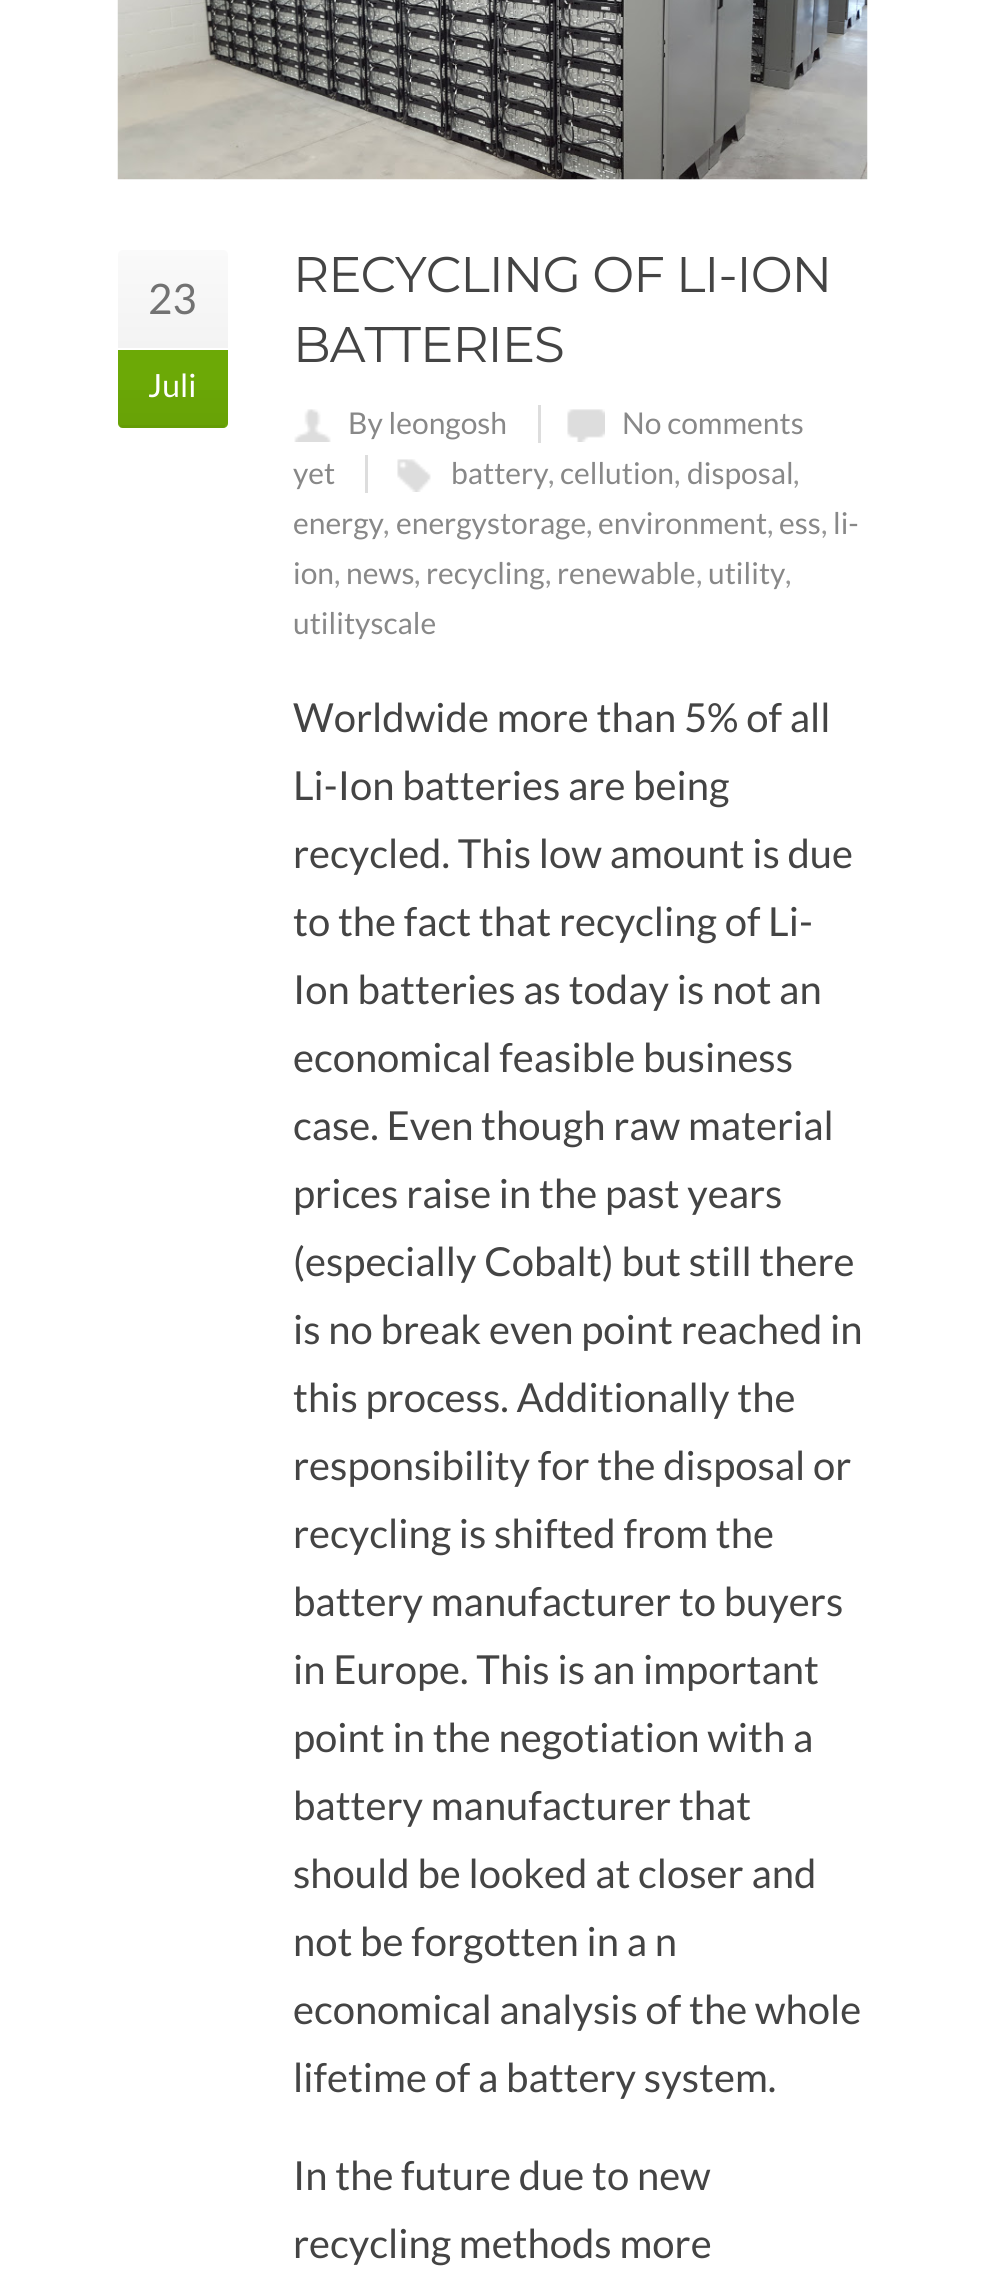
import math
import cairo

surface = cairo.ImageSurface(cairo.FORMAT_RGB24, 984, 2294)
cr = cairo.Context(surface)
options = cairo.FontOptions()
options.set_hint_metrics(cairo.HINT_METRICS_OFF)
options.set_hint_style(cairo.HINT_STYLE_NONE)
cr.set_font_options(options)
cr.set_miter_limit(4)


def rgb(code):
    cr.set_source_rgb(*(v / 255 for v in bytes.fromhex(code[-6:])))


def tracked(x, y, s, letter, word):
    cr.move_to(x, y)
    for ch in s:
        cr.show_text(ch)
        cr.rel_move_to(letter + word * (ch == ' '), 0)


def image(path, x, y, w, h):
    cr.save()
    cr.set_source_surface(cairo.ImageSurface.create_from_png(path), x, y)
    cr.rectangle(x, y, w, h)
    cr.fill()
    cr.restore()


rgb("#ffffff")
cr.paint()
image("img/1.png", 117, 0, 751, 180)
gradient = cairo.LinearGradient(173, 250, 173, 348)
gradient.add_color_stop_rgba(0, 0.98, 0.98, 0.98, 1)
gradient.add_color_stop_rgba(1, 0.953, 0.953, 0.953, 1)
cr.set_source(gradient)
cr.new_path()
cr.move_to(123, 250)
cr.line_to(223, 250)
cr.curve_to(226, 250, 228, 252, 228, 255)
cr.line_to(228, 348)
cr.line_to(118, 348)
cr.line_to(118, 255)
cr.curve_to(118, 252, 120, 250, 123, 250)
cr.close_path()
cr.fill()
rgb("#6ca906")
cr.new_path()
cr.move_to(118, 350)
cr.line_to(228, 350)
cr.line_to(228, 423)
cr.curve_to(228, 426, 226, 428, 223, 428)
cr.line_to(123, 428)
cr.curve_to(120, 428, 118, 426, 118, 423)
cr.close_path()
cr.fill()
gradient = cairo.LinearGradient(173, 350, 173, 425)
gradient.add_color_stop_rgba(0, 0, 0, 0, 0)
gradient.add_color_stop_rgba(1, 0, 0, 0, 0.04)
cr.set_source(gradient)
cr.rectangle(118, 390, 110, 35)
cr.fill()
cr.set_source_rgba(0, 0, 0, 0.08)
cr.rectangle(120, 425, 105, 3)
cr.fill()
image("img/2.png", 294, 409, 37, 33)
rgb("#dddddd")
cr.rectangle(538, 405, 3, 38)
cr.fill()
image("img/3.png", 567, 409, 38, 33)
cr.rectangle(365, 455, 3, 38)
cr.fill()
image("img/4.png", 397, 459, 34, 33)
cr.select_font_face("Lato")
cr.set_font_size(42)
rgb("#727272")
cr.move_to(148, 314)
cr.show_text("23")
cr.set_font_size(32)
rgb("#ffffff")
cr.move_to(148, 397)
cr.show_text("Juli")
cr.select_font_face("Montserrat")
cr.set_font_size(50)
rgb("#444444")
tracked(293, 292, "RECYCLING OF LI-ION", -1, 0)
tracked(293, 362, "BATTERIES", -1, 0)
cr.select_font_face("Lato")
cr.set_font_size(30)
rgb("#888888")
for x, y, s in [
    (348, 434, "By leongosh"),
    (622, 434, "No comments"),
    (293, 484, "yet"),
    (451, 484, "battery"),
]:
    cr.move_to(x, y)
    cr.show_text(s)
rgb("#999999")
cr.move_to(548, 484)
cr.show_text(",")
rgb("#888888")
cr.move_to(560, 484)
cr.show_text("cellution")
rgb("#999999")
cr.move_to(674, 484)
cr.show_text(",")
rgb("#888888")
cr.move_to(687, 484)
cr.show_text("disposal")
rgb("#999999")
cr.move_to(793, 484)
cr.show_text(",")
rgb("#888888")
cr.move_to(293, 534)
cr.show_text("energy")
rgb("#999999")
cr.move_to(383, 534)
cr.show_text(",")
rgb("#888888")
cr.move_to(396, 534)
cr.show_text("energystorage")
rgb("#999999")
cr.move_to(586, 534)
cr.show_text(",")
rgb("#888888")
cr.move_to(598, 534)
cr.show_text("environment")
rgb("#999999")
cr.move_to(767, 534)
cr.show_text(",")
rgb("#888888")
cr.move_to(779, 534)
cr.show_text("ess")
rgb("#999999")
cr.move_to(821, 534)
cr.show_text(",")
rgb("#888888")
cr.move_to(833, 534)
cr.show_text("li-")
cr.move_to(293, 584)
cr.show_text("ion")
rgb("#999999")
cr.move_to(334, 584)
cr.show_text(",")
rgb("#888888")
cr.move_to(346, 584)
cr.show_text("news")
rgb("#999999")
cr.move_to(414, 584)
cr.show_text(",")
rgb("#888888")
cr.move_to(426, 584)
cr.show_text("recycling")
rgb("#999999")
cr.move_to(545, 584)
cr.show_text(",")
rgb("#888888")
cr.move_to(557, 584)
cr.show_text("renewable")
rgb("#999999")
cr.move_to(696, 584)
cr.show_text(",")
rgb("#888888")
cr.move_to(708, 584)
cr.show_text("utility")
rgb("#999999")
cr.move_to(785, 584)
cr.show_text(",")
rgb("#888888")
cr.move_to(293, 634)
cr.show_text("utilityscale")
cr.set_font_size(40)
rgb("#444444")
for x, y, s in [
    (293, 732, "Worldwide more than 5% of all"),
    (293, 800, "Li-Ion batteries are being"),
    (293, 868, "recycled. This low amount is due"),
    (293, 936, "to the fact that recycling of Li-"),
    (293, 1004, "Ion batteries as today is not an"),
    (293, 1072, "economical feasible business"),
    (293, 1140, "case. Even though raw material"),
    (293, 1208, "prices raise in the past years"),
    (293, 1276, "(especially Cobalt) but still there"),
    (293, 1344, "is no break even point reached in"),
    (293, 1412, "this process. Additionally the"),
    (293, 1480, "responsibility for the disposal or"),
    (293, 1548, "recycling is shifted from the"),
    (293, 1616, "battery manufacturer to buyers"),
    (293, 1684, "in Europe. This is an important"),
    (293, 1752, "point in the negotiation with a"),
    (293, 1820, "battery manufacturer that"),
    (293, 1888, "should be looked at closer and"),
    (293, 1956, "not be forgotten in a n"),
    (293, 2024, "economical analysis of the whole"),
    (293, 2092, "lifetime of a battery system."),
    (293, 2190, "In the future due to new"),
    (293, 2258, "recycling methods more"),
]:
    cr.move_to(x, y)
    cr.show_text(s)
surface.write_to_png("page.png")
